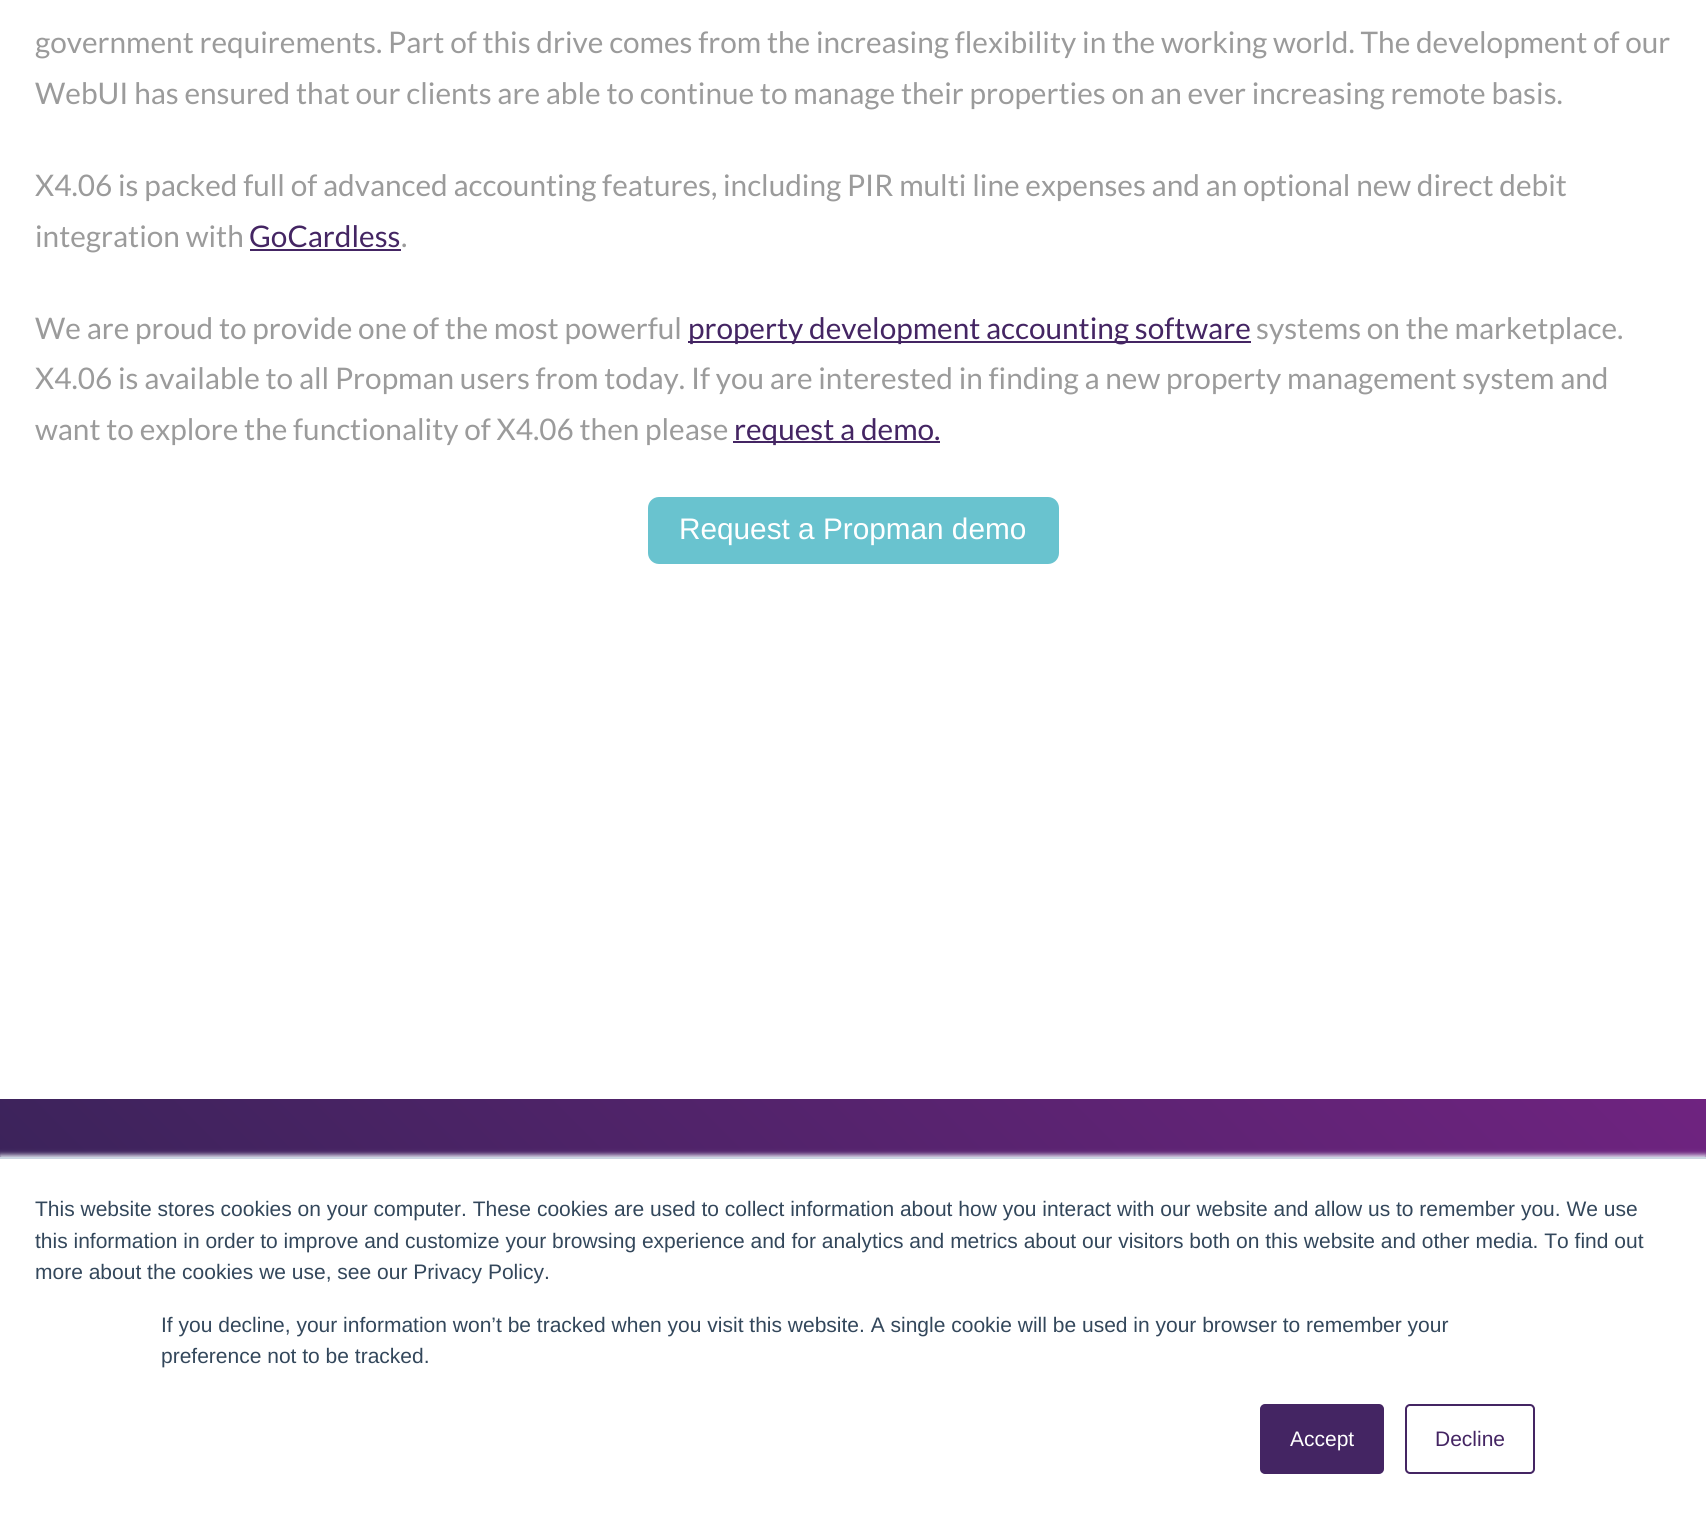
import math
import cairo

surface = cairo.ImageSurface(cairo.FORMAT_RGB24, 1706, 1518)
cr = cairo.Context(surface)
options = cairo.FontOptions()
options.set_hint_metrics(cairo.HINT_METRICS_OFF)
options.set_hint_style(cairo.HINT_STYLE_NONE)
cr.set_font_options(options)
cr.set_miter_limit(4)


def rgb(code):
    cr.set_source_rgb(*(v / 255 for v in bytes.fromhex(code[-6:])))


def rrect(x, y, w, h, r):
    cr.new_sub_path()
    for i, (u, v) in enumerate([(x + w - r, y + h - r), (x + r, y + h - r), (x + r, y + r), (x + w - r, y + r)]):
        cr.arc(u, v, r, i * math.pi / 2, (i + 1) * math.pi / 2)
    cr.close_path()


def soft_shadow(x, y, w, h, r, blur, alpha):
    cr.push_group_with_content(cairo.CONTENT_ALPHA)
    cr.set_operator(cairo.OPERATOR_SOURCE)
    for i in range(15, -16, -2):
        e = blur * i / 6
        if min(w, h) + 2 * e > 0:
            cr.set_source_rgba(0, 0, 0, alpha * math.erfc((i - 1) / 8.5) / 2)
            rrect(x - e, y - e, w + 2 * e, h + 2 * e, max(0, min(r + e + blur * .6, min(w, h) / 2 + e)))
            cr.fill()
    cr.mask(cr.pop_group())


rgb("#ffffff")
cr.paint()
for x, y, w, h, color in [
    (250, 249, 151, 2, "#442563"),
    (688, 341, 563, 2, "#442563"),
    (733, 441, 207, 2, "#442563"),
]:
    rgb(color)
    cr.rectangle(x, y, w, h)
    cr.fill()
rgb("#69c3cf")
rrect(648, 497, 411, 67, 11)
cr.fill()
gradient = cairo.LinearGradient(1536, 928, 171, 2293)
gradient.add_color_stop_rgba(0, 0.435, 0.137, 0.502, 1)
gradient.add_color_stop_rgba(1, 0.125, 0.137, 0.275, 1)
cr.set_source(gradient)
cr.rectangle(0, 1099, 1706, 58)
cr.fill()
rgb("#eaf0f6")
soft_shadow(0, 1155, 1706, 362, 0, 2.5, 1)
rgb("#ffffff")
cr.rectangle(0, 1159, 1706, 359)
cr.fill()
rgb("#cbd6e2")
cr.rectangle(0, 1157, 1706, 2)
cr.fill()
rgb("#442563")
rrect(1261, 1405, 122, 68, 4)
cr.fill_preserve()
cr.stroke()
rrect(1406, 1405, 128, 68, 4)
cr.stroke()
cr.select_font_face("Lato")
cr.set_font_size(29.75)
rgb("#9b9b9b")
for x, y, s in [
    (35, 53, "government requirements. Part of this drive comes from the increasing flexibility in the working world. The development of our"),
    (35, 104, "WebUI has ensured that our clients are able to continue to manage their properties on an ever increasing remote basis."),
    (35, 196, "X4.06 is packed full of advanced accounting features, including PIR multi line expenses and an optional new direct debit"),
    (35, 247, "integration with"),
]:
    cr.move_to(x, y)
    cr.show_text(s)
rgb("#442563")
cr.move_to(249, 247)
cr.show_text("GoCardless")
rgb("#9b9b9b")
cr.move_to(401, 247)
cr.show_text(".")
cr.move_to(35, 339)
cr.show_text("We are proud to provide one of the most powerful")
rgb("#442563")
cr.move_to(688, 339)
cr.show_text("property development accounting software")
rgb("#9b9b9b")
for x, y, s in [
    (1256, 339, "systems on the marketplace."),
    (35, 389, "X4.06 is available to all Propman users from today. If you are interested in finding a new property management system and"),
    (35, 440, "want to explore the functionality of X4.06 then please"),
]:
    cr.move_to(x, y)
    cr.show_text(s)
rgb("#442563")
cr.move_to(734, 440)
cr.show_text("request a demo.")
cr.select_font_face("Liberation Sans")
rgb("#ffffff")
cr.move_to(679, 539)
cr.show_text("Request a Propman demo")
cr.set_font_size(21)
rgb("#33475b")
for x, y, s in [
    (35, 1216, "This website stores cookies on your computer. These cookies are used to collect information about how you interact with our website and allow us to remember you. We use"),
    (35, 1248, "this information in order to improve and customize your browsing experience and for analytics and metrics about our visitors both on this website and other media. To find out"),
    (35, 1279, "more about the cookies we use, see our Privacy Policy."),
    (161, 1332, "If you decline, your information won’t be tracked when you visit this website. A single cookie will be used in your browser to remember your"),
    (161, 1363, "preference not to be tracked."),
]:
    cr.move_to(x, y)
    cr.show_text(s)
rgb("#ffffff")
cr.move_to(1290, 1446)
cr.show_text("Accept")
rgb("#442563")
cr.move_to(1435, 1446)
cr.show_text("Decline")
surface.write_to_png("page.png")
